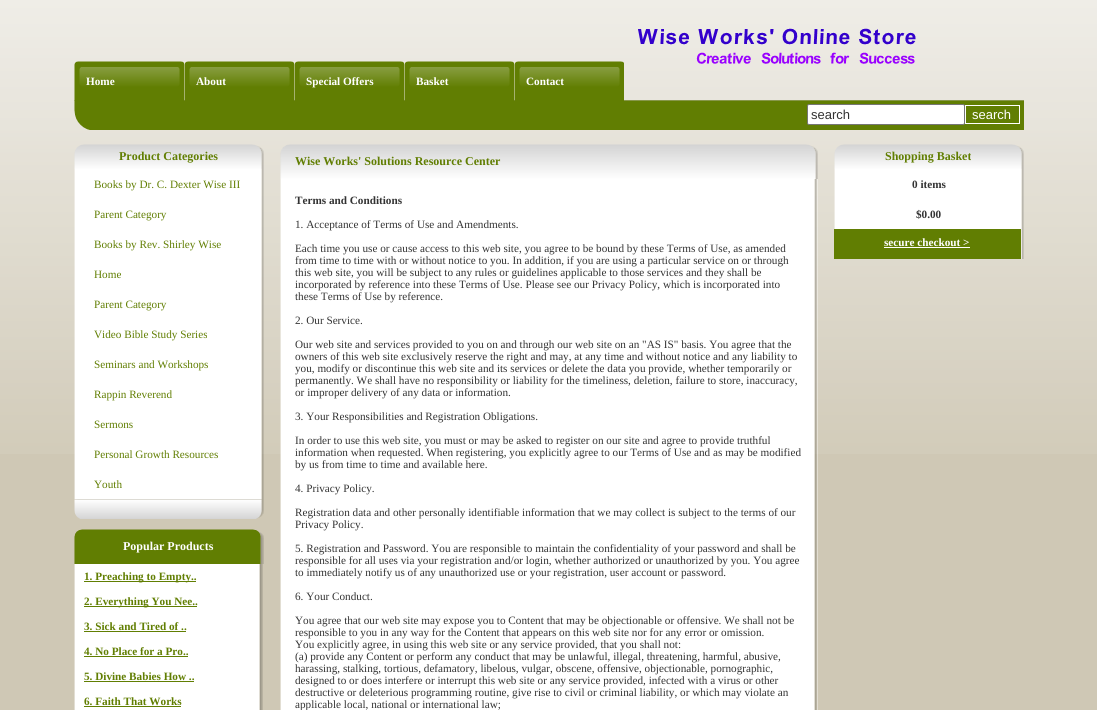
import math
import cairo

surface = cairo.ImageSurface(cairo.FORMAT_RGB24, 1097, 710)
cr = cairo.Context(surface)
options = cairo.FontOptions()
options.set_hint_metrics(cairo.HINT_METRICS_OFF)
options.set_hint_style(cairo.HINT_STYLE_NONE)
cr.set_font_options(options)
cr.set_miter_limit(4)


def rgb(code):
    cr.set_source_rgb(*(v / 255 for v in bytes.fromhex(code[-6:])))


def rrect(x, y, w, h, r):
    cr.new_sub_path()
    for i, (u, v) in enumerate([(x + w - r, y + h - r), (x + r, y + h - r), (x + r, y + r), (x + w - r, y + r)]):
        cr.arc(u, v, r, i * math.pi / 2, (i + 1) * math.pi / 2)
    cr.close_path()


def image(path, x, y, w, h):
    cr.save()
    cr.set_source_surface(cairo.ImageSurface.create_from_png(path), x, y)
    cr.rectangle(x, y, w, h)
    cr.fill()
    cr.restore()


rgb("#cfc8b5")
cr.paint()
image("img/1.png", 0, 0, 1097, 454)
image("img/2.png", 638, 28, 278, 36)
image("img/5.png", 74, 100, 950, 30)
image("img/3.png", 74, 61, 110, 40)
image("img/4.png", 184, 61, 110, 40)
image("img/4.png", 294, 61, 110, 40)
image("img/4.png", 404, 61, 110, 40)
image("img/4.png", 514, 61, 110, 40)
rgb("#ffffff")
rrect(807.5, 104.5, 157, 20, 1.5)
cr.fill_preserve()
rgb("#767676")
cr.set_line_width(1)
cr.stroke()
cr.rectangle(965.5, 105.5, 54, 18)
rgb("#ffffff")
cr.stroke()
image("img/6.png", 74, 144, 190, 25)
image("img/7.png", 74, 169, 190, 330)
image("img/8.png", 74, 499, 190, 20)
image("img/9.png", 74, 529, 190, 35)
image("img/10.png", 74, 564, 189, 146)
for x, y, w, h, color in [
    (84, 581, 112, 1, "#617e02"),
    (84, 606, 113, 1, "#617e02"),
    (84, 631, 102, 1, "#617e02"),
    (84, 656, 104, 1, "#617e02"),
    (84, 681, 110, 1, "#617e02"),
    (84, 706, 97, 1, "#617e02"),
]:
    rgb(color)
    cr.rectangle(x, y, w, h)
    cr.fill()
image("img/11.png", 280, 144, 538, 35)
image("img/12.png", 280, 179, 538, 531)
image("img/6.png", 834, 144, 190, 25)
image("img/13.png", 834, 169, 190, 90)
cr.rectangle(834, 229, 187, 30)
cr.fill()
rgb("#ffffff")
cr.rectangle(884, 247, 86, 1)
cr.fill()
cr.select_font_face("Liberation Serif", cairo.FONT_SLANT_NORMAL, cairo.FONT_WEIGHT_BOLD)
cr.set_font_size(11.2)
for x, y, s in [
    (86, 85, "Home"),
    (196, 85, "About"),
    (306, 85, "Special Offers"),
    (416, 85, "Basket"),
    (526, 85, "Contact"),
]:
    cr.move_to(x, y)
    cr.show_text(s)
cr.select_font_face("Liberation Sans")
cr.set_font_size(13)
rgb("#333333")
cr.move_to(811, 119)
cr.show_text("search")
rgb("#ffffff")
cr.move_to(972, 119)
cr.show_text("search")
cr.select_font_face("Liberation Serif", cairo.FONT_SLANT_NORMAL, cairo.FONT_WEIGHT_BOLD)
cr.set_font_size(12)
rgb("#617e02")
cr.move_to(119, 160)
cr.show_text("Product Categories")
cr.select_font_face("Liberation Serif")
cr.set_font_size(11.2)
for x, y, s in [
    (94, 188, "Books by Dr. C. Dexter Wise III"),
    (94, 218, "Parent Category"),
    (94, 248, "Books by Rev. Shirley Wise"),
    (94, 278, "Home"),
    (94, 308, "Parent Category"),
    (94, 338, "Video Bible Study Series"),
    (94, 368, "Seminars and Workshops"),
    (94, 398, "Rappin Reverend"),
    (94, 428, "Sermons"),
    (94, 458, "Personal Growth Resources"),
    (94, 488, "Youth"),
]:
    cr.move_to(x, y)
    cr.show_text(s)
cr.select_font_face("Liberation Serif", cairo.FONT_SLANT_NORMAL, cairo.FONT_WEIGHT_BOLD)
cr.set_font_size(12)
rgb("#ffffff")
cr.move_to(123, 550)
cr.show_text("Popular Products")
cr.set_font_size(11.2)
rgb("#617e02")
for x, y, s in [
    (84, 580, "1. Preaching to Empty.."),
    (84, 605, "2. Everything You Nee.."),
    (84, 630, "3. Sick and Tired of .."),
    (84, 655, "4. No Place for a Pro.."),
    (84, 680, "5. Divine Babies How .."),
    (84, 705, "6. Faith That Works"),
]:
    cr.move_to(x, y)
    cr.show_text(s)
cr.set_font_size(12)
cr.move_to(295, 165)
cr.show_text("Wise Works' Solutions Resource Center")
cr.save()
cr.rectangle(295, 194, 508, 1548)
cr.clip()
cr.set_font_size(11.2)
rgb("#333333")
cr.move_to(295, 204)
cr.show_text("Terms and Conditions")
cr.restore()
cr.select_font_face("Liberation Serif")
cr.set_font_size(11.2)
rgb("#333333")
for x, y, s in [
    (295, 228, "1. Acceptance of Terms of Use and Amendments."),
    (295, 252, "Each time you use or cause access to this web site, you agree to be bound by these Terms of Use, as amended"),
    (295, 264, "from time to time with or without notice to you. In addition, if you are using a particular service on or through"),
    (295, 276, "this web site, you will be subject to any rules or guidelines applicable to those services and they shall be"),
    (295, 288, "incorporated by reference into these Terms of Use. Please see our Privacy Policy, which is incorporated into"),
    (295, 300, "these Terms of Use by reference."),
    (295, 324, "2. Our Service."),
    (295, 348, "Our web site and services provided to you on and through our web site on an \"AS IS\" basis. You agree that the"),
    (295, 360, "owners of this web site exclusively reserve the right and may, at any time and without notice and any liability to"),
    (295, 372, "you, modify or discontinue this web site and its services or delete the data you provide, whether temporarily or"),
    (295, 384, "permanently. We shall have no responsibility or liability for the timeliness, deletion, failure to store, inaccuracy,"),
    (295, 396, "or improper delivery of any data or information."),
    (295, 420, "3. Your Responsibilities and Registration Obligations."),
    (295, 444, "In order to use this web site, you must or may be asked to register on our site and agree to provide truthful"),
    (295, 456, "information when requested. When registering, you explicitly agree to our Terms of Use and as may be modified"),
    (295, 468, "by us from time to time and available here."),
    (295, 492, "4. Privacy Policy."),
    (295, 516, "Registration data and other personally identifiable information that we may collect is subject to the terms of our"),
    (295, 528, "Privacy Policy."),
    (295, 552, "5. Registration and Password. You are responsible to maintain the confidentiality of your password and shall be"),
    (295, 564, "responsible for all uses via your registration and/or login, whether authorized or unauthorized by you. You agree"),
    (295, 576, "to immediately notify us of any unauthorized use or your registration, user account or password."),
    (295, 600, "6. Your Conduct."),
    (295, 624, "You agree that our web site may expose you to Content that may be objectionable or offensive. We shall not be"),
    (295, 636, "responsible to you in any way for the Content that appears on this web site nor for any error or omission."),
    (295, 648, "You explicitly agree, in using this web site or any service provided, that you shall not:"),
    (295, 660, "(a) provide any Content or perform any conduct that may be unlawful, illegal, threatening, harmful, abusive,"),
    (295, 672, "harassing, stalking, tortious, defamatory, libelous, vulgar, obscene, offensive, objectionable, pornographic,"),
    (295, 684, "designed to or does interfere or interrupt this web site or any service provided, infected with a virus or other"),
    (295, 696, "destructive or deleterious programming routine, give rise to civil or criminal liability, or which may violate an"),
    (295, 708, "applicable local, national or international law;"),
]:
    cr.move_to(x, y)
    cr.show_text(s)
cr.select_font_face("Liberation Serif", cairo.FONT_SLANT_NORMAL, cairo.FONT_WEIGHT_BOLD)
cr.set_font_size(12)
rgb("#617e02")
cr.move_to(885, 160)
cr.show_text("Shopping Basket")
cr.set_font_size(11.2)
rgb("#333333")
cr.move_to(912, 188)
cr.show_text("0 items")
cr.move_to(916, 218)
cr.show_text("$0.00")
rgb("#ffffff")
cr.move_to(884, 246)
cr.show_text("secure checkout >")
surface.write_to_png("page.png")
